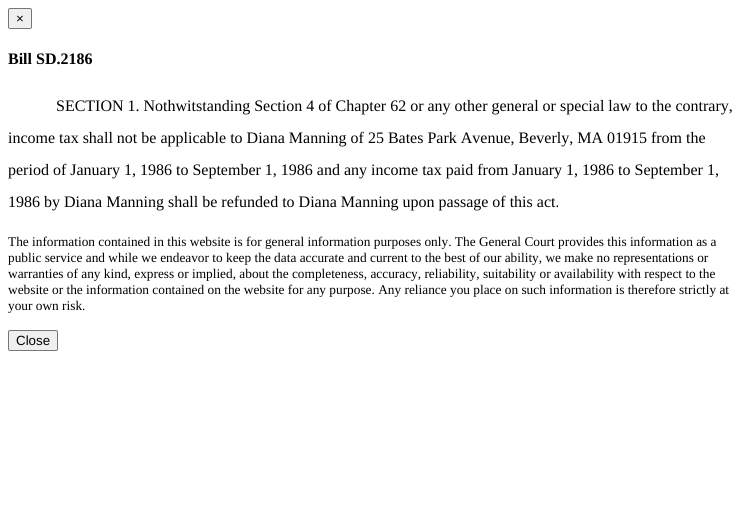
import math
import cairo

surface = cairo.ImageSurface(cairo.FORMAT_RGB24, 752, 525)
cr = cairo.Context(surface)
options = cairo.FontOptions()
options.set_hint_metrics(cairo.HINT_METRICS_OFF)
options.set_hint_style(cairo.HINT_STYLE_NONE)
cr.set_font_options(options)
cr.set_miter_limit(4)


def rgb(code):
    cr.set_source_rgb(*(v / 255 for v in bytes.fromhex(code[-6:])))


def rrect(x, y, w, h, r):
    cr.new_sub_path()
    for i, (u, v) in enumerate([(x + w - r, y + h - r), (x + r, y + h - r), (x + r, y + r), (x + w - r, y + r)]):
        cr.arc(u, v, r, i * math.pi / 2, (i + 1) * math.pi / 2)
    cr.close_path()


rgb("#ffffff")
cr.paint()
rgb("#efefef")
rrect(8.5, 8.5, 23, 20, 1.5)
cr.fill_preserve()
rgb("#767676")
cr.set_line_width(1)
cr.stroke()
rgb("#efefef")
rrect(8.5, 330.5, 49, 20, 1.5)
cr.fill_preserve()
rgb("#767676")
cr.stroke()
cr.select_font_face("Liberation Sans")
cr.set_font_size(13.33)
rgb("#000000")
cr.move_to(16, 23)
cr.show_text("×")
cr.select_font_face("Liberation Serif", cairo.FONT_SLANT_NORMAL, cairo.FONT_WEIGHT_BOLD)
cr.set_font_size(16)
cr.move_to(8, 64)
cr.show_text("Bill SD.2186")
cr.select_font_face("Liberation Serif")
for x, y, s in [
    (56, 111, "SECTION 1. Nothwitstanding Section 4 of Chapter 62 or any other general or special law to the contrary,"),
    (8, 143, "income tax shall not be applicable to Diana Manning of 25 Bates Park Avenue, Beverly, MA 01915 from the"),
    (8, 175, "period of January 1, 1986 to September 1, 1986 and any income tax paid from January 1, 1986 to September 1,"),
    (8, 207, "1986 by Diana Manning shall be refunded to Diana Manning upon passage of this act."),
]:
    cr.move_to(x, y)
    cr.show_text(s)
cr.set_font_size(13.33)
for x, y, s in [
    (8, 246, "The information contained in this website is for general information purposes only. The General Court provides this information as a"),
    (8, 262, "public service and while we endeavor to keep the data accurate and current to the best of our ability, we make no representations or"),
    (8, 278, "warranties of any kind, express or implied, about the completeness, accuracy, reliability, suitability or availability with respect to the"),
    (8, 294, "website or the information contained on the website for any purpose. Any reliance you place on such information is therefore strictly at"),
    (8, 310, "your own risk."),
]:
    cr.move_to(x, y)
    cr.show_text(s)
cr.select_font_face("Liberation Sans")
cr.move_to(16, 345)
cr.show_text("Close")
surface.write_to_png("page.png")
